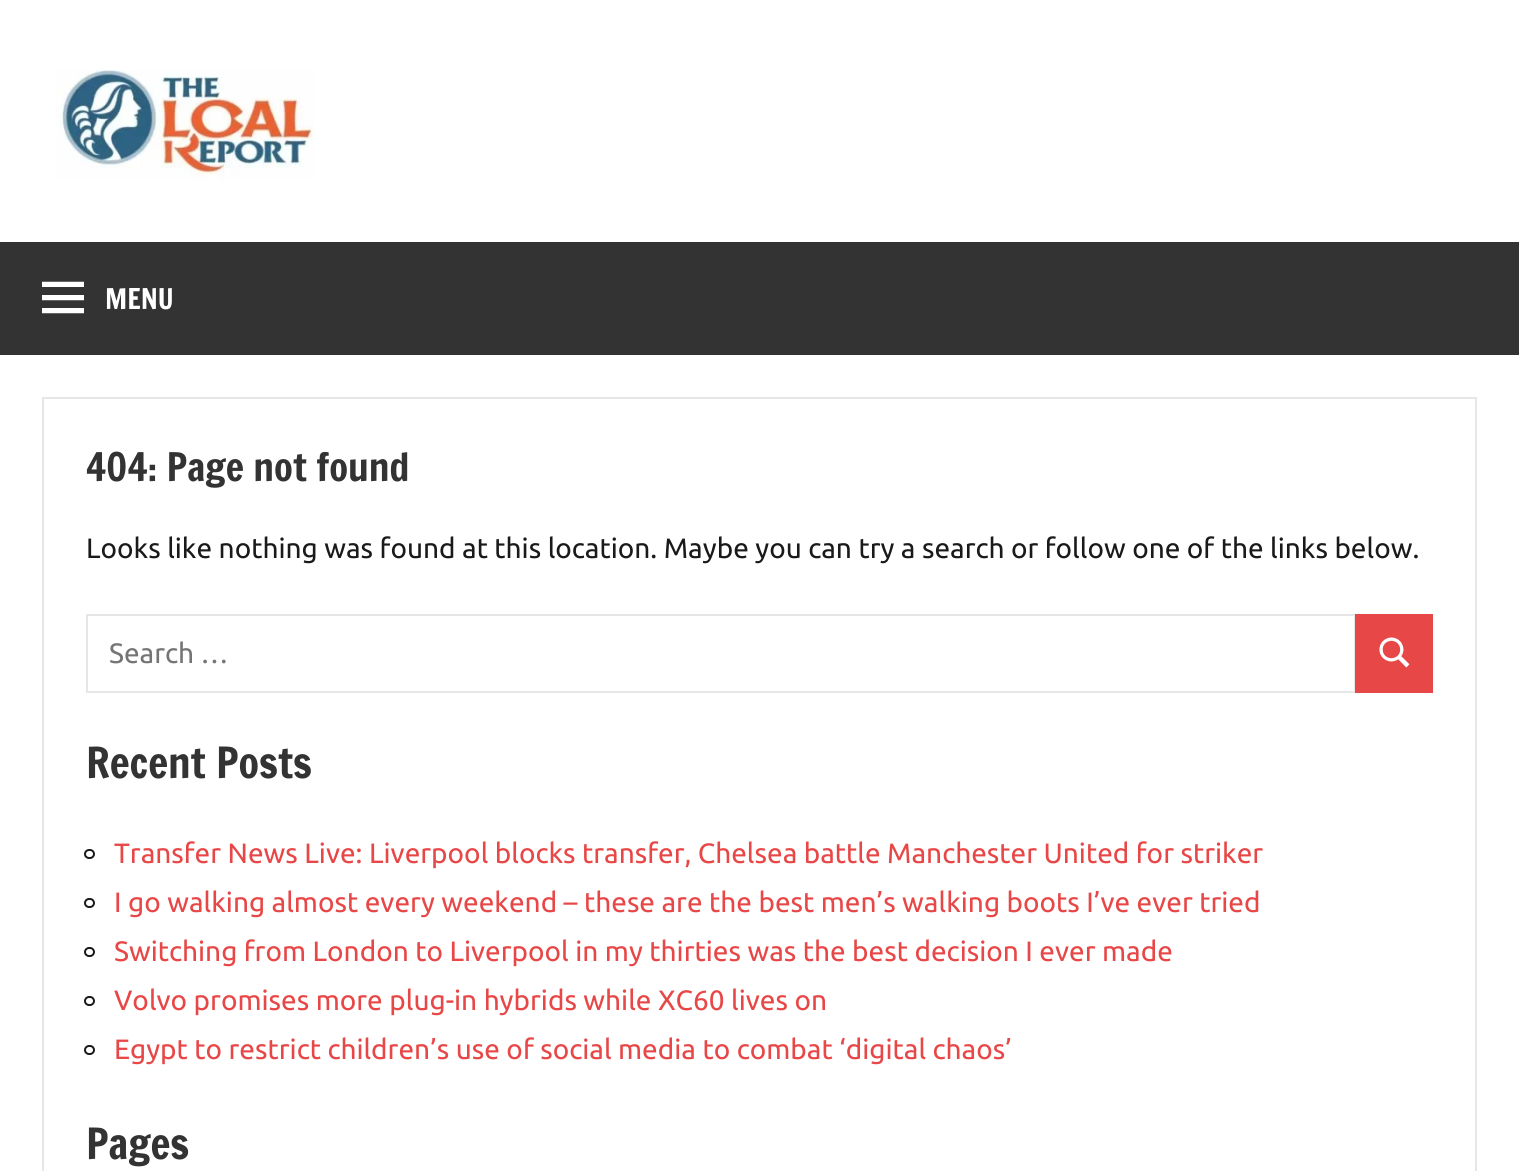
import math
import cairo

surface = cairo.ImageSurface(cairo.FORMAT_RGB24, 1519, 1171)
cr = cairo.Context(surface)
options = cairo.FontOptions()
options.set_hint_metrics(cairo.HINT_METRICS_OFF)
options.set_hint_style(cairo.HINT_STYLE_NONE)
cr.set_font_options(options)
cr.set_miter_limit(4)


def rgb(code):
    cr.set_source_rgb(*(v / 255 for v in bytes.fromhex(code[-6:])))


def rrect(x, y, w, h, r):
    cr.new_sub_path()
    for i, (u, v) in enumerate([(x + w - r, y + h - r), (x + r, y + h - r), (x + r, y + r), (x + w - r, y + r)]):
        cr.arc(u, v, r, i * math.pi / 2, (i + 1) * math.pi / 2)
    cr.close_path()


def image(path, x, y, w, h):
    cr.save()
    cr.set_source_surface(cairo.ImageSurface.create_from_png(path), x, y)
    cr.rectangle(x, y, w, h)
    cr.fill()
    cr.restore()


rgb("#ffffff")
cr.paint()
image("img/1.png", 56, 70, 258, 111)
rgb("#333333")
cr.rectangle(0, 242, 1519, 113)
cr.fill()
image("img/2.png", 42, 281, 42, 33)
cr.rectangle(43, 398, 1433, 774)
rgb("#e6e6e6")
cr.stroke()
cr.rectangle(87, 615, 1268, 77)
cr.stroke()
rgb("#e84747")
cr.rectangle(1355, 614, 78, 79)
cr.fill()
image("img/3.png", 1379, 637, 31, 31)
rrect(85, 850, 9, 8, 4)
rgb("#1a1a1a")
cr.stroke()
rrect(85, 899, 9, 8, 4)
cr.stroke()
rrect(85, 948, 9, 8, 4)
cr.stroke()
rrect(85, 997, 9, 8, 4)
cr.stroke()
rrect(85, 1046, 9, 8, 4)
cr.stroke()
cr.select_font_face("Francois One")
cr.set_font_size(28)
rgb("#ffffff")
cr.move_to(105, 309)
cr.show_text("MENU")
cr.set_font_size(38.5)
rgb("#333333")
cr.move_to(86, 481)
cr.show_text("404: Page not found")
cr.select_font_face("Ubuntu")
cr.set_font_size(28)
rgb("#1a1a1a")
cr.move_to(86, 558)
cr.show_text("Looks like nothing was found at this location. Maybe you can try a search or follow one of the links below.")
rgb("#757575")
cr.move_to(109, 663)
cr.show_text("Search …")
cr.select_font_face("Francois One")
cr.set_font_size(42)
rgb("#333333")
cr.move_to(86, 778)
cr.show_text("Recent Posts")
cr.select_font_face("Ubuntu")
cr.set_font_size(28)
rgb("#e84747")
for x, y, s in [
    (114, 863, "Transfer News Live: Liverpool blocks transfer, Chelsea battle Manchester United for striker"),
    (114, 912, "I go walking almost every weekend – these are the best men’s walking boots I’ve ever tried"),
    (114, 961, "Switching from London to Liverpool in my thirties was the best decision I ever made"),
    (114, 1010, "Volvo promises more plug-in hybrids while XC60 lives on"),
    (114, 1059, "Egypt to restrict children’s use of social media to combat ‘digital chaos’"),
]:
    cr.move_to(x, y)
    cr.show_text(s)
cr.select_font_face("Francois One")
cr.set_font_size(42)
rgb("#333333")
cr.move_to(86, 1159)
cr.show_text("Pages")
surface.write_to_png("page.png")
